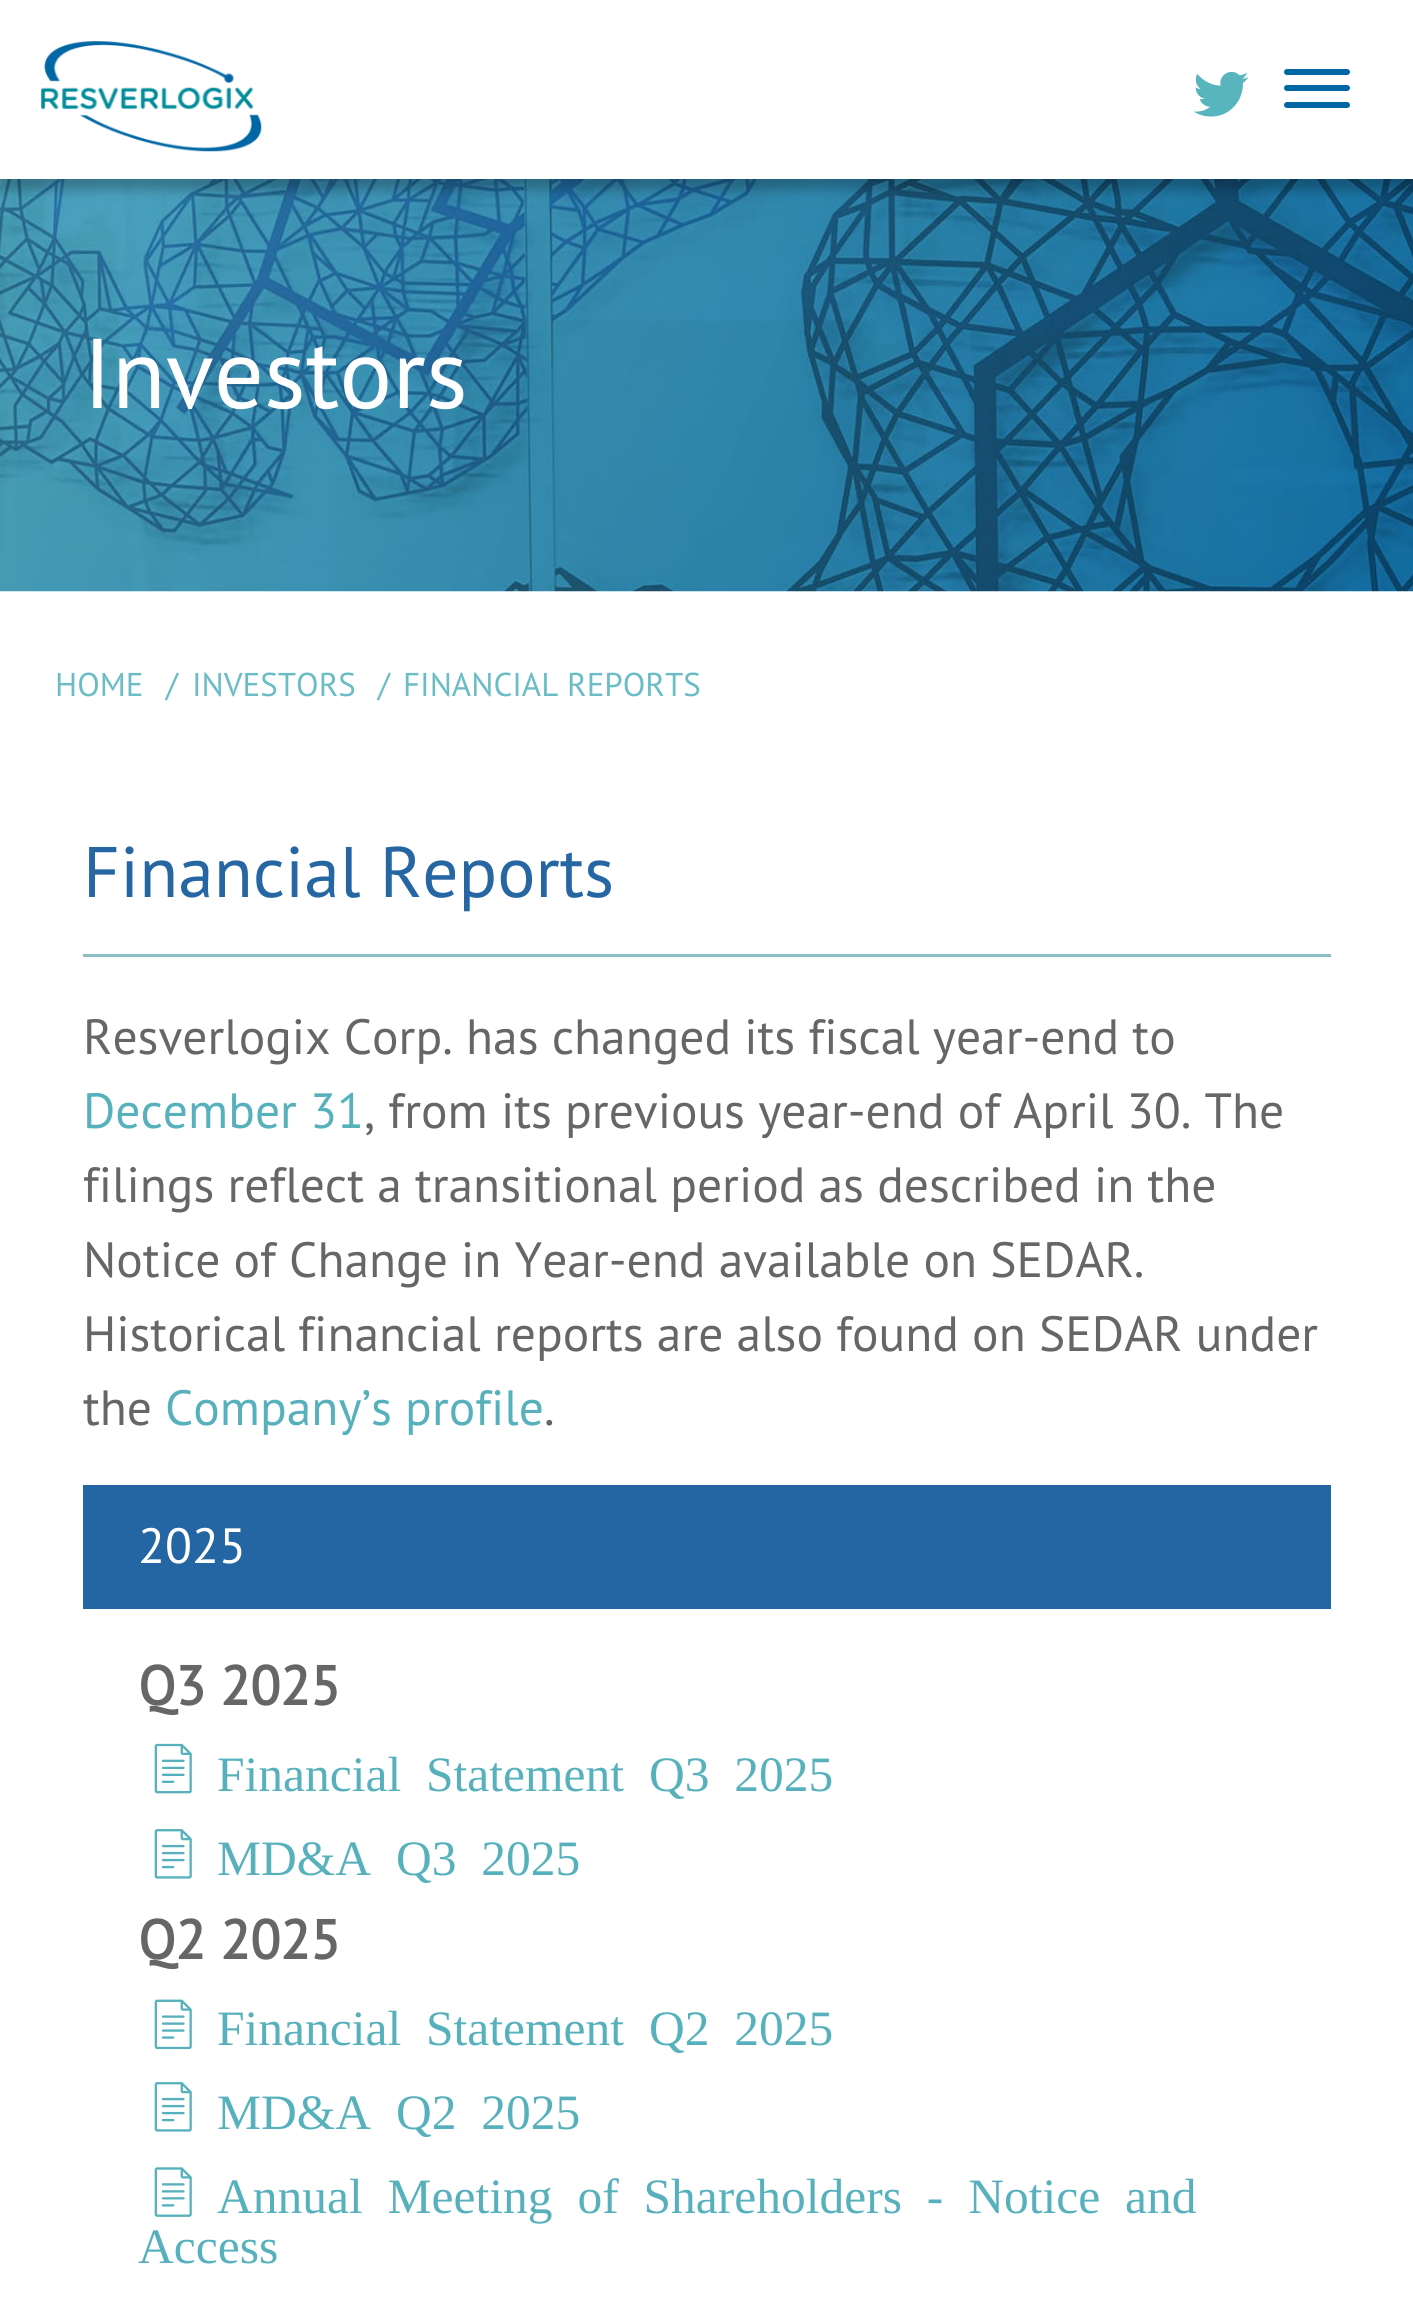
import math
import cairo

surface = cairo.ImageSurface(cairo.FORMAT_RGB24, 1413, 2298)
cr = cairo.Context(surface)
options = cairo.FontOptions()
options.set_hint_metrics(cairo.HINT_METRICS_OFF)
options.set_hint_style(cairo.HINT_STYLE_NONE)
cr.set_font_options(options)
cr.set_miter_limit(4)


def rgb(code):
    cr.set_source_rgb(*(v / 255 for v in bytes.fromhex(code[-6:])))


def tracked(x, y, s, letter, word):
    cr.move_to(x, y)
    for ch in s:
        cr.show_text(ch)
        cr.rel_move_to(letter + word * (ch == ' '), 0)


def rrect(x, y, w, h, r):
    cr.new_sub_path()
    for i, (u, v) in enumerate([(x + w - r, y + h - r), (x + r, y + h - r), (x + r, y + r), (x + w - r, y + r)]):
        cr.arc(u, v, r, i * math.pi / 2, (i + 1) * math.pi / 2)
    cr.close_path()


def soft_shadow(x, y, w, h, r, blur, alpha):
    cr.push_group_with_content(cairo.CONTENT_ALPHA)
    cr.set_operator(cairo.OPERATOR_SOURCE)
    for i in range(15, -16, -2):
        e = blur * i / 6
        if min(w, h) + 2 * e > 0:
            cr.set_source_rgba(0, 0, 0, alpha * math.erfc((i - 1) / 8.5) / 2)
            rrect(x - e, y - e, w + 2 * e, h + 2 * e, max(0, min(r + e + blur * .6, min(w, h) / 2 + e)))
            cr.fill()
    cr.mask(cr.pop_group())


def image(path, x, y, w, h):
    cr.save()
    cr.set_source_surface(cairo.ImageSurface.create_from_png(path), x, y)
    cr.rectangle(x, y, w, h)
    cr.fill()
    cr.restore()


rgb("#ffffff")
cr.paint()
image("img/3.png", 0, 179, 1413, 413)
rgb("#000000")
soft_shadow(0, 11, 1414, 179, 0, 5.5, 0.25)
rgb("#ffffff")
cr.rectangle(0, 1, 1413, 178)
cr.fill()
image("img/1.png", 41, 41, 221, 111)
image("img/2.png", 1193, 71, 56, 46)
rgb("#0066a4")
rrect(1284, 69, 66, 6, 3)
cr.fill()
rrect(1284, 85, 66, 6, 3)
cr.fill()
rrect(1284, 102, 66, 6, 3)
cr.fill()
rgb("#8bbec4")
cr.rectangle(83, 954, 1248, 3)
cr.fill()
rgb("#2465a4")
cr.rectangle(83, 1485, 1248, 124)
cr.fill()
image("img/4.png", 154, 1743, 38, 51)
image("img/5.png", 154, 1829, 38, 50)
image("img/6.png", 154, 1999, 38, 51)
image("img/5.png", 154, 2082, 38, 50)
image("img/7.png", 154, 2167, 38, 50)
cr.select_font_face("PT Sans")
cr.set_font_size(99)
rgb("#ffffff")
cr.move_to(83, 408)
cr.show_text("Investors")
cr.set_font_size(33)
rgb("#6abcc5")
for x, y, s in [
    (55, 696, "HOME"),
    (166, 696, "/"),
    (192, 696, "INVESTORS"),
    (378, 696, "/"),
    (403, 696, "FINANCIAL REPORTS"),
]:
    cr.move_to(x, y)
    cr.show_text(s)
cr.set_font_size(71.5)
rgb("#2566a3")
cr.move_to(83, 897)
cr.show_text("Financial Reports")
cr.set_font_size(49.5)
rgb("#666666")
cr.move_to(83, 1054)
cr.show_text("Resverlogix Corp. has changed its fiscal year-end to")
rgb("#57b1bc")
cr.move_to(83, 1128)
cr.show_text("December 31")
rgb("#666666")
for x, y, s in [
    (364, 1128, ", from its previous year-end of April 30. The"),
    (83, 1202, "filings reflect a transitional period as described in the"),
    (83, 1277, "Notice of Change in Year-end available on SEDAR."),
    (83, 1351, "Historical financial reports are also found on SEDAR under"),
    (83, 1425, "the"),
]:
    cr.move_to(x, y)
    cr.show_text(s)
rgb("#57b1bc")
cr.move_to(165, 1425)
cr.show_text("Company’s profile")
rgb("#666666")
cr.move_to(544, 1425)
cr.show_text(".")
rgb("#ffffff")
cr.move_to(138, 1563)
cr.show_text("2025")
cr.select_font_face("PT Sans", cairo.FONT_SLANT_NORMAL, cairo.FONT_WEIGHT_BOLD)
cr.set_font_size(55)
rgb("#666666")
cr.move_to(138, 1705)
cr.show_text("Q3 2025")
cr.select_font_face("Liberation Serif")
cr.set_font_size(49.5)
rgb("#57b1bc")
tracked(217, 1791, "Financial Statement Q3 2025", 0, 12.5)
tracked(217, 1875, "MD&A Q3 2025", 0, 12.5)
cr.select_font_face("PT Sans", cairo.FONT_SLANT_NORMAL, cairo.FONT_WEIGHT_BOLD)
cr.set_font_size(55)
rgb("#666666")
cr.move_to(138, 1959)
cr.show_text("Q2 2025")
cr.select_font_face("Liberation Serif")
cr.set_font_size(49.5)
rgb("#57b1bc")
for x, y, s in [
    (217, 2045, "Financial Statement Q2 2025"),
    (217, 2129, "MD&A Q2 2025"),
    (217, 2213, "Annual Meeting of Shareholders - Notice and"),
]:
    tracked(x, y, s, 0, 12.5)
cr.move_to(138, 2263)
cr.show_text("Access")
surface.write_to_png("page.png")
